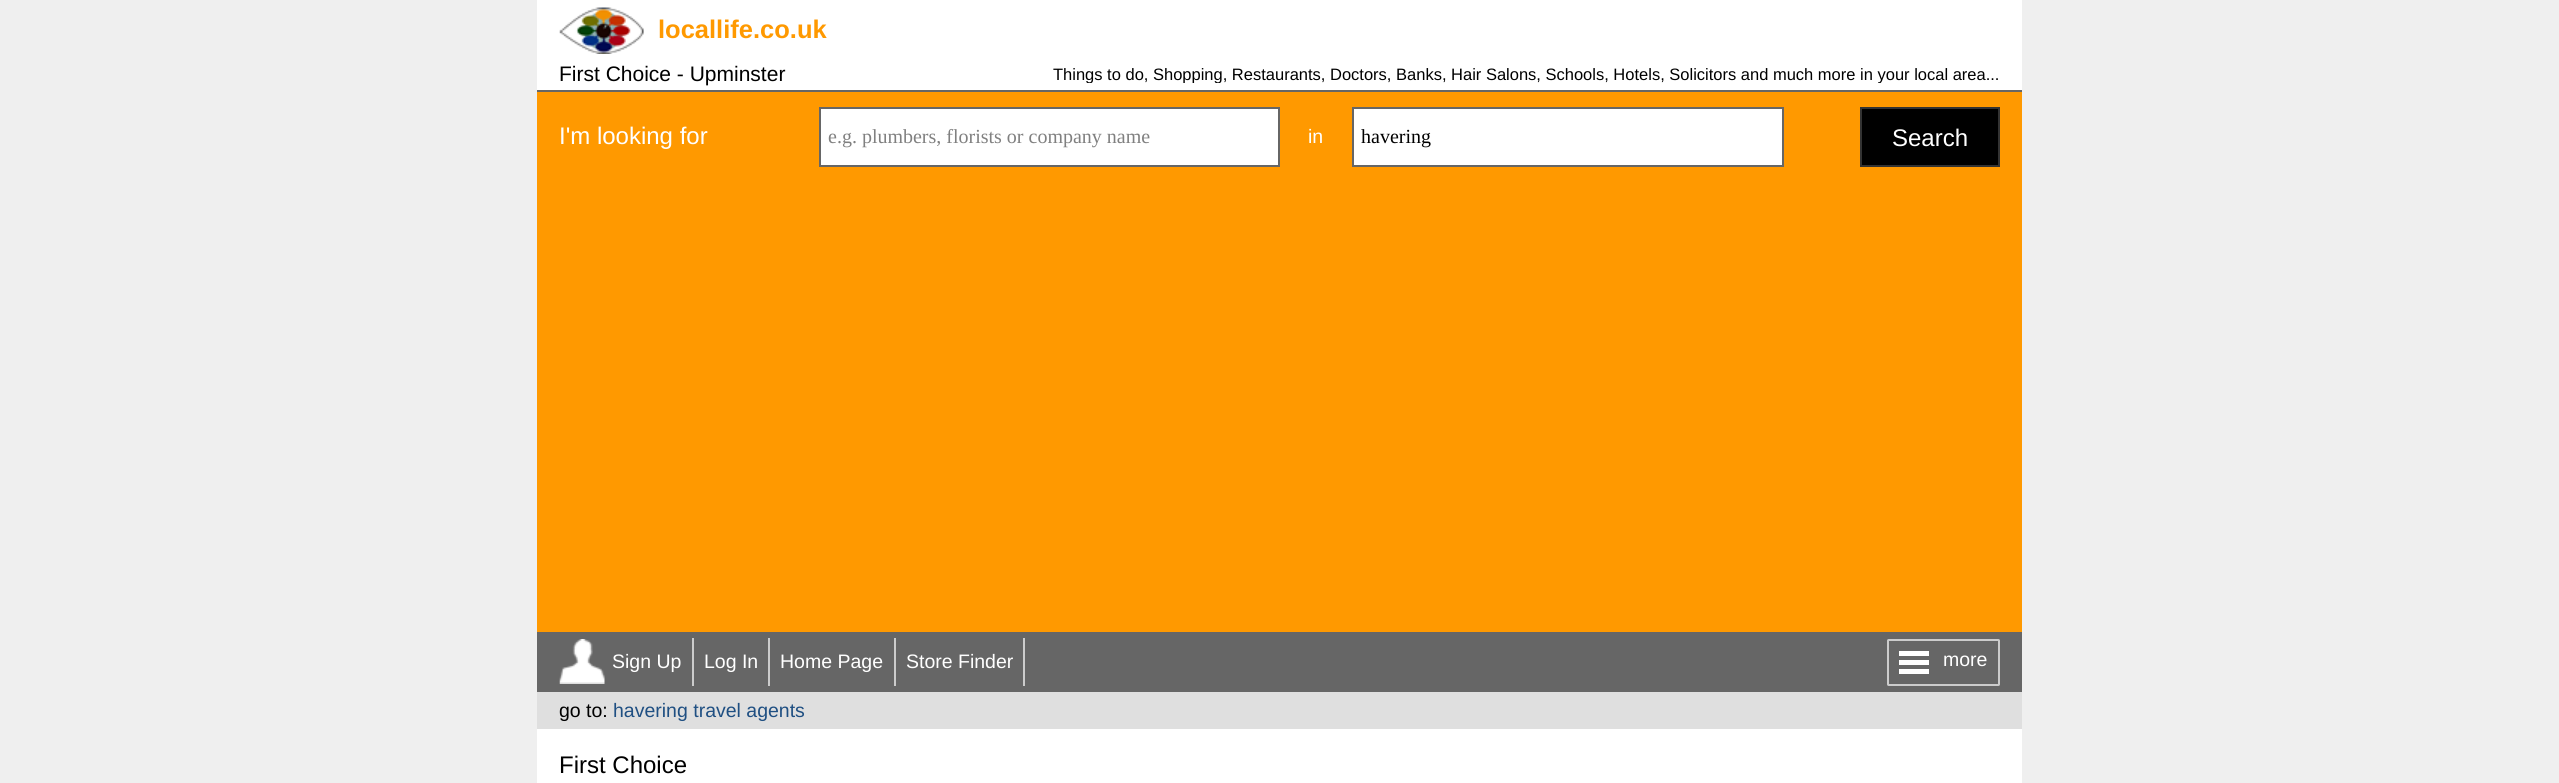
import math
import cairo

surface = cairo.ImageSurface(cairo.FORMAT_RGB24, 2559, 783)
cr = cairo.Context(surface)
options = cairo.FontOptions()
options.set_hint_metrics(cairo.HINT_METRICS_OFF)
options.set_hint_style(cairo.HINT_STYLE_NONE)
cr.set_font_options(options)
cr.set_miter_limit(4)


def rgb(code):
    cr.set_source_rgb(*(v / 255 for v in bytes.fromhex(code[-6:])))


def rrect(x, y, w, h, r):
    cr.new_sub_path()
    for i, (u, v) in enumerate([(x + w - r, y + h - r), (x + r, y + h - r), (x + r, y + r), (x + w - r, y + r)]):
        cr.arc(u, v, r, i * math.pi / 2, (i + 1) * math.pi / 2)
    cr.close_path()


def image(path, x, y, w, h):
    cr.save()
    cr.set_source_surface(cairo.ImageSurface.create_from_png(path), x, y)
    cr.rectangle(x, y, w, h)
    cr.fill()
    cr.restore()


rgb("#efefef")
cr.paint()
rgb("#ffffff")
cr.rectangle(537, 0, 1485, 783)
cr.fill()
image("img/1.png", 559, 7, 85, 47)
rgb("#ff9900")
cr.rectangle(537, 92, 1485, 540)
cr.fill()
rgb("#666666")
cr.rectangle(537, 90, 1485, 2)
cr.fill()
rgb("#ffffff")
cr.rectangle(820, 108, 459, 58)
cr.fill_preserve()
rgb("#666666")
cr.stroke()
rgb("#ffffff")
cr.rectangle(1353, 108, 430, 58)
cr.fill_preserve()
rgb("#666666")
cr.stroke()
rgb("#000000")
cr.rectangle(1861, 108, 138, 58)
cr.fill_preserve()
rgb("#333333")
cr.stroke()
rgb("#666666")
cr.rectangle(537, 632, 1485, 60)
cr.fill()
image("img/2.png", 559, 639, 46, 45)
for x, y, w, h, color in [
    (692, 638, 2, 48, "#cccccc"),
    (768, 638, 2, 48, "#cccccc"),
    (894, 638, 2, 48, "#cccccc"),
    (1023, 638, 2, 48, "#cccccc"),
]:
    rgb(color)
    cr.rectangle(x, y, w, h)
    cr.fill()
rrect(1888, 640, 111, 45, 0.5)
cr.stroke()
for x, y, w, h, color in [
    (1899, 651, 30, 5, "#ffffff"),
    (1899, 660, 30, 5, "#ffffff"),
    (1899, 669, 30, 5, "#ffffff"),
    (537, 692, 1485, 37, "#dfdfdf"),
]:
    rgb(color)
    cr.rectangle(x, y, w, h)
    cr.fill()
cr.select_font_face("Liberation Sans", cairo.FONT_SLANT_NORMAL, cairo.FONT_WEIGHT_BOLD)
cr.set_font_size(25.5)
rgb("#ff9900")
cr.move_to(658, 38)
cr.show_text("locallife.co.uk")
cr.select_font_face("Liberation Sans")
cr.set_font_size(21)
rgb("#000000")
cr.move_to(559, 81)
cr.show_text("First Choice - Upminster")
cr.save()
cr.rectangle(876, 62, 1124, 21)
cr.clip()
cr.set_font_size(16.5)
cr.move_to(1053, 80)
cr.show_text("Things to do, Shopping, Restaurants, Doctors, Banks, Hair Salons, Schools, Hotels, Solicitors and much more in your local area...")
cr.restore()
cr.set_font_size(24)
rgb("#ffffff")
cr.move_to(559, 144)
cr.show_text("I'm looking for")
cr.select_font_face("Liberation Serif")
cr.set_font_size(20)
rgb("#808080")
cr.move_to(828, 143)
cr.show_text("e.g. plumbers, florists or company name")
cr.select_font_face("Liberation Sans")
cr.set_font_size(19.5)
rgb("#ffffff")
cr.move_to(1308, 143)
cr.show_text("in")
cr.select_font_face("Liberation Serif")
cr.set_font_size(20)
rgb("#000000")
cr.move_to(1361, 143)
cr.show_text("havering")
cr.select_font_face("Liberation Sans")
cr.set_font_size(24)
rgb("#ffffff")
cr.move_to(1892, 146)
cr.show_text("Search")
cr.set_font_size(19.5)
for x, y, s in [
    (612, 668, "Sign Up"),
    (704, 668, "Log In"),
    (780, 668, "Home Page"),
    (906, 668, "Store Finder"),
    (1943, 666, "more"),
]:
    cr.move_to(x, y)
    cr.show_text(s)
rgb("#000000")
cr.move_to(559, 717)
cr.show_text("go to:")
rgb("#1f4f82")
cr.move_to(613, 717)
cr.show_text("havering travel agents")
cr.set_font_size(24)
rgb("#000000")
cr.move_to(559, 773)
cr.show_text("First Choice")
surface.write_to_png("page.png")
